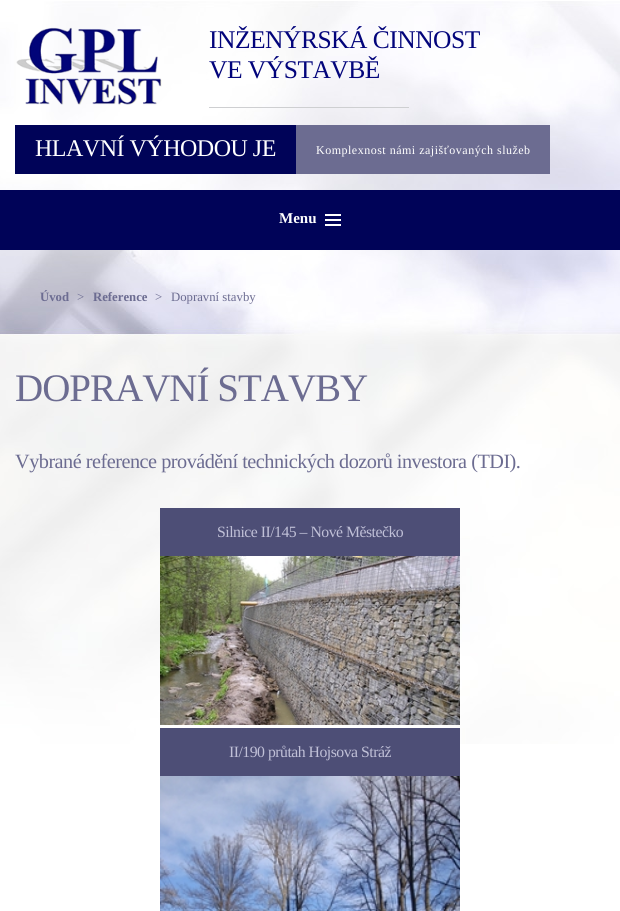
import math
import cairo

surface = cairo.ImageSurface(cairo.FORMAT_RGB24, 620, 911)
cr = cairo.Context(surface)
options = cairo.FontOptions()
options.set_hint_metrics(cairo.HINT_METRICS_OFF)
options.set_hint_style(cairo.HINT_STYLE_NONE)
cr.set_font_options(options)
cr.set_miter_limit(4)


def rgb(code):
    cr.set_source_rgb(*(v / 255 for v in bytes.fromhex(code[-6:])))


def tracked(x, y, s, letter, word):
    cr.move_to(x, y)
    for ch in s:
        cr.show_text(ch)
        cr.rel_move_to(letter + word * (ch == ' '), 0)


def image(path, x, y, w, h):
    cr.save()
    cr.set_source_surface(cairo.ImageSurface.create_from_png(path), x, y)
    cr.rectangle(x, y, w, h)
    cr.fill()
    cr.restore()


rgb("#ffffff")
cr.paint()
image("img/1.png", 0, 1, 620, 743)
image("img/2.png", 16, 27, 146, 78)
for x, y, w, h, color in [
    (209, 107, 200, 1, "#cecfd1"),
    (15, 125, 281, 49, "#000358"),
    (296, 125, 254, 49, "#6c6c91"),
    (0, 190, 620, 60, "#000358"),
]:
    rgb(color)
    cr.rectangle(x, y, w, h)
    cr.fill()
image("img/3.png", 325, 214, 16, 12)
rgb("#4d4e76")
cr.rectangle(160, 508, 300, 48)
cr.fill()
image("img/4.png", 160, 556, 300, 169)
cr.rectangle(160, 728, 300, 48)
cr.fill()
image("img/5.png", 160, 776, 300, 135)
cr.select_font_face("Liberation Serif")
cr.set_font_size(25.5)
rgb("#02047b")
tracked(209, 48, "INŽENÝRSKÁ ČINNOST", -0.5, 0)
tracked(209, 78, "VE VÝSTAVBĚ", -0.5, 0)
cr.set_font_size(24)
rgb("#ffffff")
tracked(35, 156, "HLAVNÍ VÝHODOU JE", -0.5, 0)
cr.set_font_size(12)
tracked(316, 154, "Komplexnost námi zajišťovaných služeb", 0.5, 0)
cr.select_font_face("Liberation Serif", cairo.FONT_SLANT_NORMAL, cairo.FONT_WEIGHT_BOLD)
cr.set_font_size(15)
cr.move_to(279, 223)
cr.show_text("Menu")
cr.set_font_size(12.75)
rgb("#6c6c91")
cr.move_to(40, 301)
cr.show_text("Úvod")
cr.select_font_face("Liberation Serif")
cr.move_to(77, 301)
cr.show_text(">")
cr.select_font_face("Liberation Serif", cairo.FONT_SLANT_NORMAL, cairo.FONT_WEIGHT_BOLD)
cr.move_to(93, 301)
cr.show_text("Reference")
cr.select_font_face("Liberation Serif")
cr.move_to(155, 301)
cr.show_text(">")
cr.move_to(171, 301)
cr.show_text("Dopravní stavby")
cr.set_font_size(39)
tracked(15, 401, "DOPRAVNÍ STAVBY", -1, 0)
cr.set_font_size(20.25)
tracked(15, 468, "Vybrané reference provádění technických dozorů investora (TDI).", -0.5, 0)
cr.set_font_size(15.75)
rgb("#c0c0d7")
tracked(217, 537, "Silnice II/145 – Nové Městečko", -0.5, 0)
tracked(229, 757, "II/190 průtah Hojsova Stráž", -0.5, 0)
surface.write_to_png("page.png")
